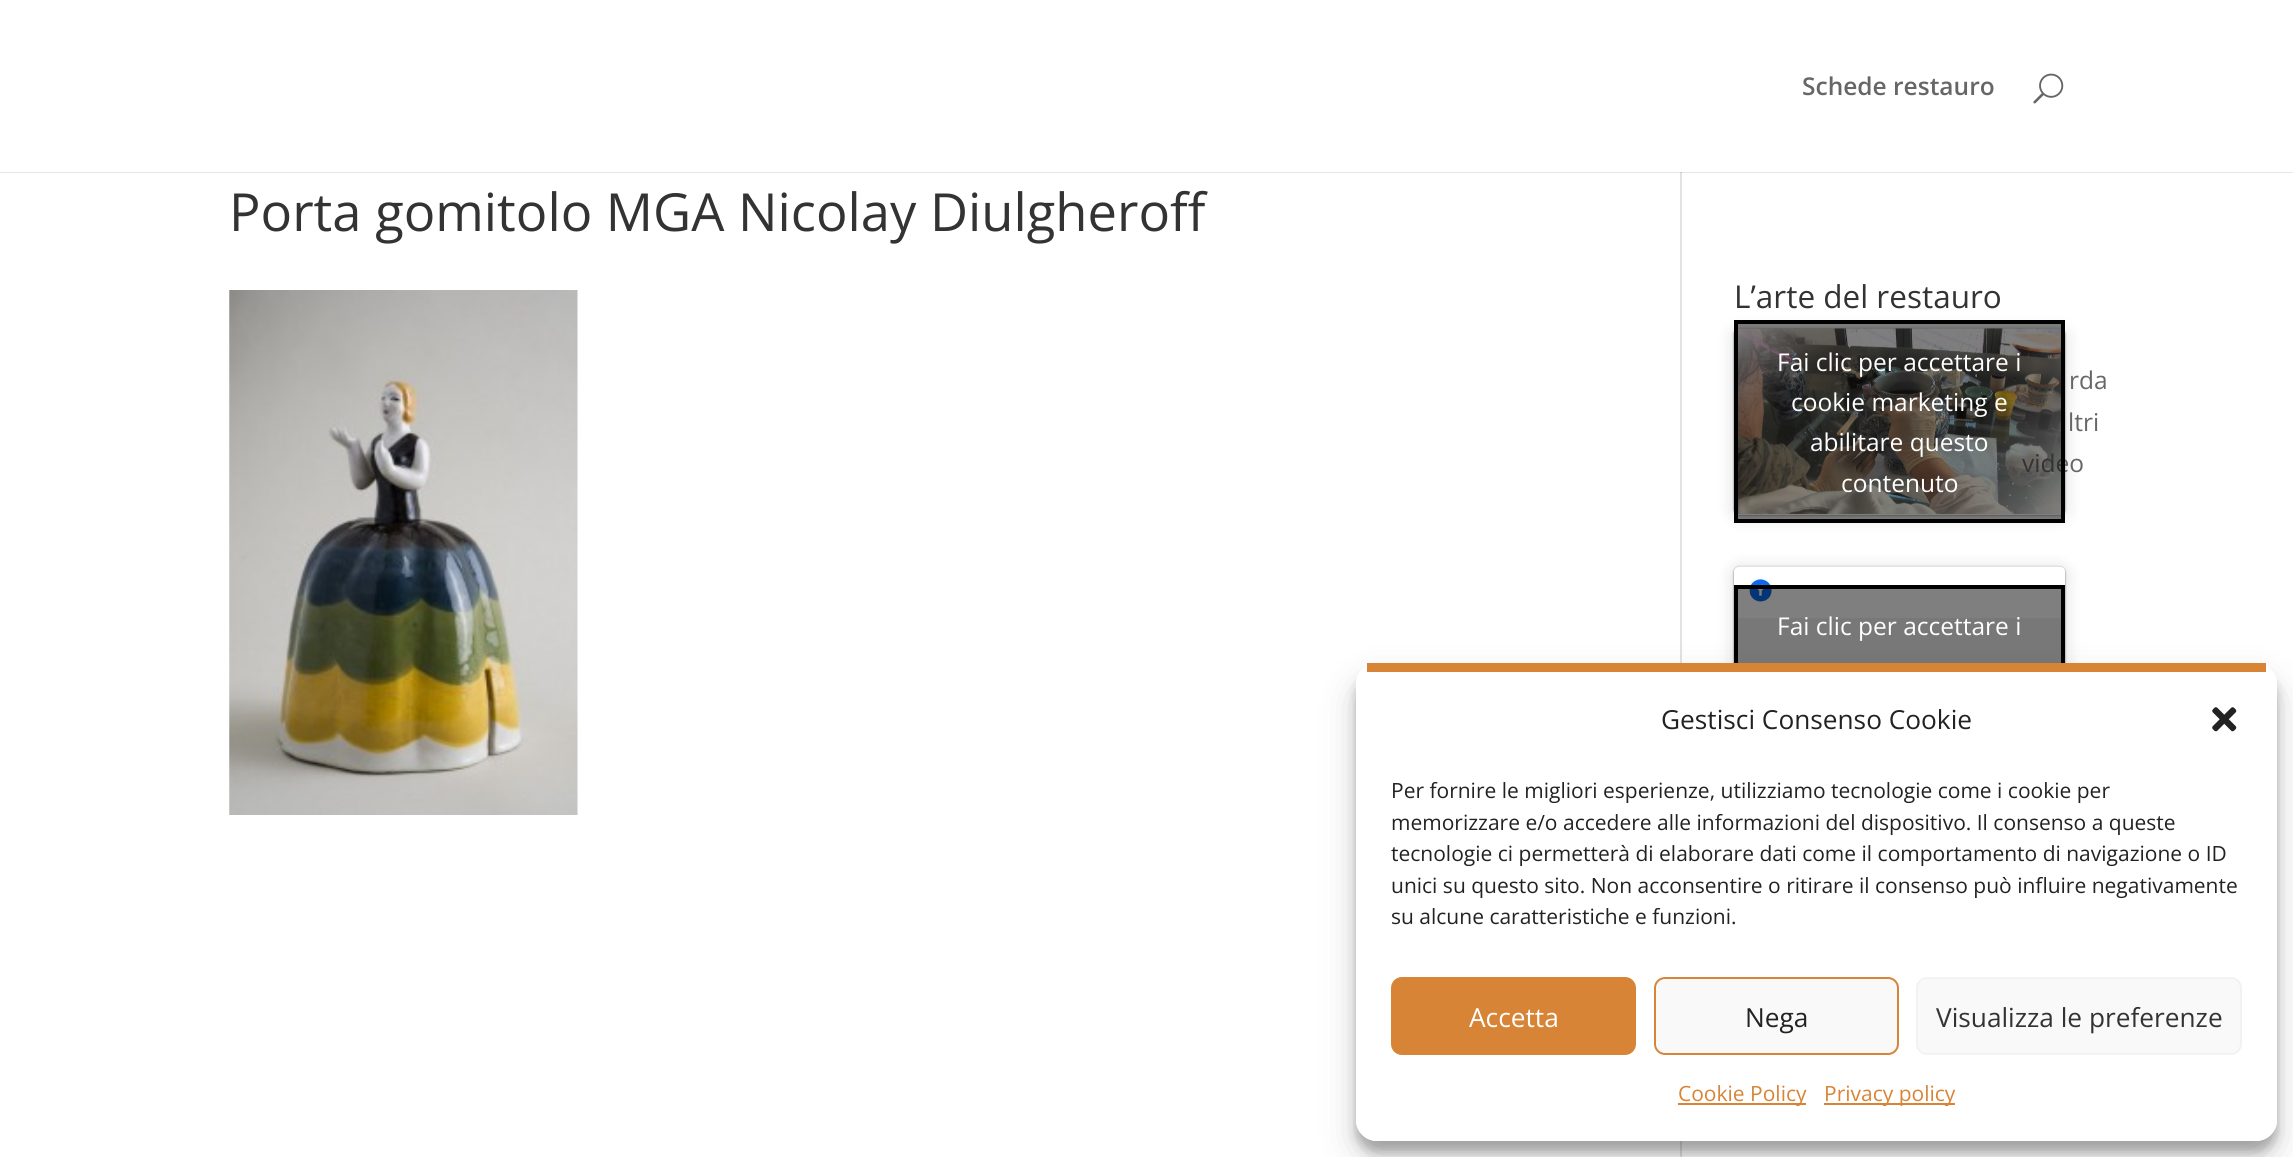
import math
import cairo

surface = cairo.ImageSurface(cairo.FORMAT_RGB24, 2293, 1157)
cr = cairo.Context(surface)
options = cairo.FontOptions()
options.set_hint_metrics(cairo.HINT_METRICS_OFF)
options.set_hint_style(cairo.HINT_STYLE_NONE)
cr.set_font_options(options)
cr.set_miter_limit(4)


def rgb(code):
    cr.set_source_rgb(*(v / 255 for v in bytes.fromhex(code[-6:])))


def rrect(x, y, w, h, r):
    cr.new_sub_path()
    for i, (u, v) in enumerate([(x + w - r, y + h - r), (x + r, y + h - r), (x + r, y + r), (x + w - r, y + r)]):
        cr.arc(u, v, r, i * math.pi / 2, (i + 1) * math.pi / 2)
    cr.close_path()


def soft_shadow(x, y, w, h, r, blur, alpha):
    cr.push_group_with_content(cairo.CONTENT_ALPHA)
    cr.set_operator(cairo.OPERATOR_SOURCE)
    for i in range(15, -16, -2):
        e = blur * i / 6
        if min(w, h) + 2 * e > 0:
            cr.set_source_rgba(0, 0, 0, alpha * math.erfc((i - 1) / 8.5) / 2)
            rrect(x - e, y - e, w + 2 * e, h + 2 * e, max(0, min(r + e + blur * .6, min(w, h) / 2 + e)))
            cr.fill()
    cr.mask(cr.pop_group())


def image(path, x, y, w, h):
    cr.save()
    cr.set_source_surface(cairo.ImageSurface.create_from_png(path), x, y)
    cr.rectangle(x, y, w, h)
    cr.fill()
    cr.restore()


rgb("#ffffff")
cr.paint()
rgb("#e6e6e6")
cr.rectangle(0, 172, 2293, 1)
cr.fill()
image("img/1.png", 2033, 73, 31, 31)
rgb("#e2e2e2")
cr.rectangle(1680, 173, 2, 984)
cr.fill()
rgb("#cbcbcb")
cr.rectangle(1680, 172, 2, 1)
cr.fill()
image("img/2.png", 229, 290, 349, 525)
rgb("#000000")
soft_shadow(1734, 331, 331, 185, 5, 9, 0.15)
soft_shadow(1734, 329, 331, 186, 5, 1, 0.5)
rgb("#ffffff")
cr.rectangle(1738, 513, 323, 2)
cr.fill()
image("img/3.png", 1738, 328, 323, 186)
rgb("#000000")
soft_shadow(1734, 569, 331, 238, 5, 9, 0.15)
soft_shadow(1734, 567, 331, 238, 5, 1, 0.5)
rgb("#ffffff")
rrect(1734, 567, 331, 238, 5)
cr.fill()
image("img/4.png", 1734, 566, 331, 97)
cr.set_source_rgba(0, 0, 0, 0.5)
cr.rectangle(1738, 589, 323, 74)
cr.fill()
cr.rectangle(1736, 587, 327, 199)
rgb("#000000")
cr.set_line_width(4)
cr.stroke()
cr.save()
cr.set_fill_rule(cairo.FILL_RULE_EVEN_ODD)
cr.new_path()
cr.move_to(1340, 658)
cr.line_to(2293, 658)
cr.line_to(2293, 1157)
cr.line_to(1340, 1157)
cr.close_path()
cr.move_to(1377, 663)
cr.line_to(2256, 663)
cr.curve_to(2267.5, 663, 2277, 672.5, 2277, 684)
cr.line_to(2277, 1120)
cr.curve_to(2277, 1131.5, 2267.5, 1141, 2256, 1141)
cr.line_to(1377, 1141)
cr.curve_to(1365.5, 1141, 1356, 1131.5, 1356, 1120)
cr.line_to(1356, 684)
cr.curve_to(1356, 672.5, 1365.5, 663, 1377, 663)
cr.close_path()
cr.clip()
rgb("#000000")
soft_shadow(1356, 674, 921, 478, 21, 5, 0.23)
cr.restore()
cr.save()
cr.set_fill_rule(cairo.FILL_RULE_EVEN_ODD)
cr.new_path()
cr.move_to(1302, 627)
cr.line_to(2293, 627)
cr.line_to(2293, 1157)
cr.line_to(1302, 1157)
cr.close_path()
cr.move_to(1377, 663)
cr.line_to(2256, 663)
cr.curve_to(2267.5, 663, 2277, 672.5, 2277, 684)
cr.line_to(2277, 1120)
cr.curve_to(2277, 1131.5, 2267.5, 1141, 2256, 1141)
cr.line_to(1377, 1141)
cr.curve_to(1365.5, 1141, 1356, 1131.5, 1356, 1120)
cr.line_to(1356, 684)
cr.curve_to(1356, 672.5, 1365.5, 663, 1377, 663)
cr.close_path()
cr.clip()
rgb("#000000")
soft_shadow(1356, 681, 921, 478, 21, 17.5, 0.19)
cr.restore()
rgb("#ffffff")
cr.new_path()
cr.move_to(1377, 672)
cr.line_to(2256, 672)
cr.curve_to(2267, 672, 2277, 677, 2277, 684)
cr.line_to(2277, 1120)
cr.curve_to(2277, 1132, 2267, 1141, 2256, 1141)
cr.line_to(1377, 1141)
cr.curve_to(1366, 1141, 1356, 1132, 1356, 1120)
cr.line_to(1356, 684)
cr.curve_to(1356, 677, 1366, 672, 1377, 672)
cr.close_path()
cr.fill()
rgb("#d88436")
cr.rectangle(1367, 663, 899, 9)
cr.fill()
image("img/5.png", 2212, 707, 25, 25)
rrect(1392, 978, 243, 76, 10)
cr.fill_preserve()
cr.set_line_width(2)
cr.stroke()
rgb("#f9f9f9")
rrect(1655, 978, 243, 76, 10)
cr.fill_preserve()
rgb("#d88436")
cr.stroke()
rgb("#f9f9f9")
rrect(1917, 978, 324, 76, 10)
cr.fill_preserve()
rgb("#f2f2f2")
cr.stroke()
rgb("#d88436")
cr.rectangle(1678, 1103, 128, 2)
cr.fill()
cr.rectangle(1824, 1103, 131, 2)
cr.fill()
cr.select_font_face("Open Sans SemiBold")
cr.set_font_size(24.5)
rgb("#666666")
cr.move_to(1802, 95)
cr.show_text("Schede restauro")
cr.select_font_face("Open Sans")
cr.set_font_size(52.5)
rgb("#333333")
cr.move_to(229, 231)
cr.show_text("Porta gomitolo MGA Nicolay Diulgheroff")
cr.set_font_size(31.5)
cr.move_to(1734, 308)
cr.show_text("L’arte del restauro")
cr.set_font_size(24.5)
rgb("#666666")
for x, y, s in [
    (2069, 389, "rda"),
    (2068, 431, "ltri"),
    (2022, 472, "video"),
]:
    cr.move_to(x, y)
    cr.show_text(s)
cr.set_source_rgba(0, 0, 0, 0.5)
cr.rectangle(1736, 322, 327, 199)
cr.fill_preserve()
rgb("#000000")
cr.set_line_width(4)
cr.stroke()
rgb("#ffffff")
for x, y, s in [
    (1841, 492, "contenuto"),
    (1810, 451, "abilitare questo"),
    (1791, 411, "cookie marketing e"),
    (1777, 371, "Fai clic per accettare i"),
    (1777, 635, "Fai clic per accettare i"),
]:
    cr.move_to(x, y)
    cr.show_text(s)
cr.set_font_size(26.25)
rgb("#222222")
cr.move_to(1661, 729)
cr.show_text("Gestisci Consenso Cookie")
cr.set_font_size(21)
for x, y, s in [
    (1391, 798, "Per fornire le migliori esperienze, utilizziamo tecnologie come i cookie per"),
    (1391, 830, "memorizzare e/o accedere alle informazioni del dispositivo. Il consenso a queste"),
    (1391, 861, "tecnologie ci permetterà di elaborare dati come il comportamento di navigazione o ID"),
    (1391, 893, "unici su questo sito. Non acconsentire o ritirare il consenso può influire negativamente"),
    (1391, 924, "su alcune caratteristiche e funzioni."),
]:
    cr.move_to(x, y)
    cr.show_text(s)
cr.set_font_size(26.25)
rgb("#ffffff")
cr.move_to(1469, 1027)
cr.show_text("Accetta")
rgb("#222222")
cr.move_to(1745, 1027)
cr.show_text("Nega")
rgb("#333333")
cr.move_to(1936, 1027)
cr.show_text("Visualizza le preferenze")
cr.set_font_size(21)
rgb("#d88436")
cr.move_to(1678, 1101)
cr.show_text("Cookie Policy")
cr.move_to(1824, 1101)
cr.show_text("Privacy policy")
surface.write_to_png("page.png")
